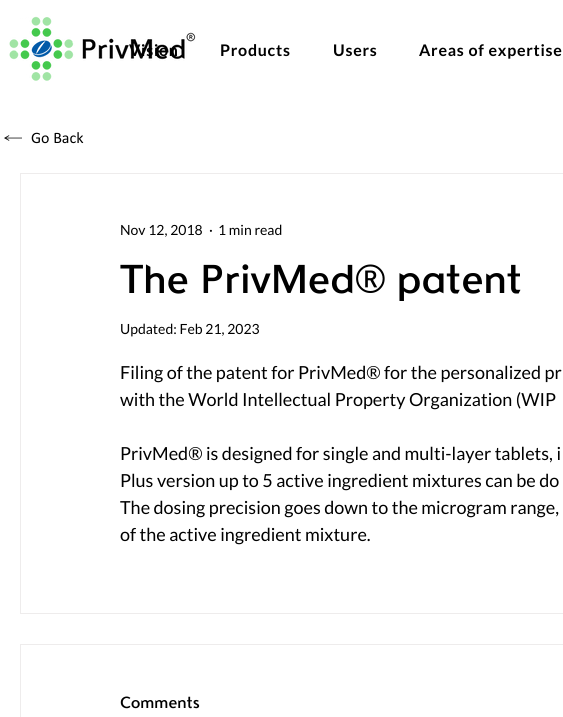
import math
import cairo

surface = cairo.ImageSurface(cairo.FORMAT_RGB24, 563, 717)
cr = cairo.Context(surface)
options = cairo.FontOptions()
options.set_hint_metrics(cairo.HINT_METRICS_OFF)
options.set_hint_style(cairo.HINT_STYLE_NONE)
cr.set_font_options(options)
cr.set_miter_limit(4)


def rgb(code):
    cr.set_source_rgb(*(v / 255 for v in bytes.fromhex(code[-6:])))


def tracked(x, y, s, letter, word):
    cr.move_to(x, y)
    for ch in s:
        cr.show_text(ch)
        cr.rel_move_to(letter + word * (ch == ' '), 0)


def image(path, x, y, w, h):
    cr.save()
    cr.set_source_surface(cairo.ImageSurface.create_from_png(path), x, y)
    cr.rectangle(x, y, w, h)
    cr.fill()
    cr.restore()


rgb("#ffffff")
cr.paint()
image("img/1.png", 9, 16, 187, 65)
image("img/2.png", 4, 135, 18, 6)
cr.rectangle(20.5, 173.5, 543, 440)
rgb("#eeecec")
cr.set_line_width(1)
cr.stroke()
cr.rectangle(20.5, 644.5, 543, 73)
cr.stroke()
cr.select_font_face("Lato", cairo.FONT_SLANT_NORMAL, cairo.FONT_WEIGHT_BOLD)
cr.set_font_size(16)
rgb("#000000")
for x, y, s in [
    (129, 56, "Vision"),
    (220, 56, "Products"),
    (333, 56, "Users"),
    (419, 56, "Areas of expertise"),
]:
    tracked(x, y, s, 0.75, 0)
cr.select_font_face("Calibri")
cr.move_to(31, 143)
cr.show_text("Go Back")
cr.select_font_face("Lato")
cr.set_font_size(14)
for x, y, s in [
    (120, 235, "Nov 12, 2018"),
    (209, 235, "·"),
    (218, 235, "1 min read"),
]:
    cr.move_to(x, y)
    cr.show_text(s)
cr.select_font_face("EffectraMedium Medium")
cr.set_font_size(40)
cr.move_to(120, 293)
cr.show_text("The PrivMed® patent")
cr.select_font_face("Lato")
cr.set_font_size(14)
cr.move_to(120, 334)
cr.show_text("Updated: Feb 21, 2023")
cr.set_font_size(18)
for x, y, s in [
    (120, 379, "Filing of the patent for PrivMed® for the personalized pr"),
    (120, 406, "with the World Intellectual Property Organization (WIP"),
    (120, 460, "PrivMed® is designed for single and multi-layer tablets, i"),
    (120, 487, "Plus version up to 5 active ingredient mixtures can be do"),
    (120, 514, "The dosing precision goes down to the microgram range,"),
    (120, 541, "of the active ingredient mixture."),
]:
    cr.move_to(x, y)
    cr.show_text(s)
cr.select_font_face("EffectraMedium Medium")
cr.set_font_size(16)
cr.move_to(120, 708)
cr.show_text("Comments")
surface.write_to_png("page.png")
